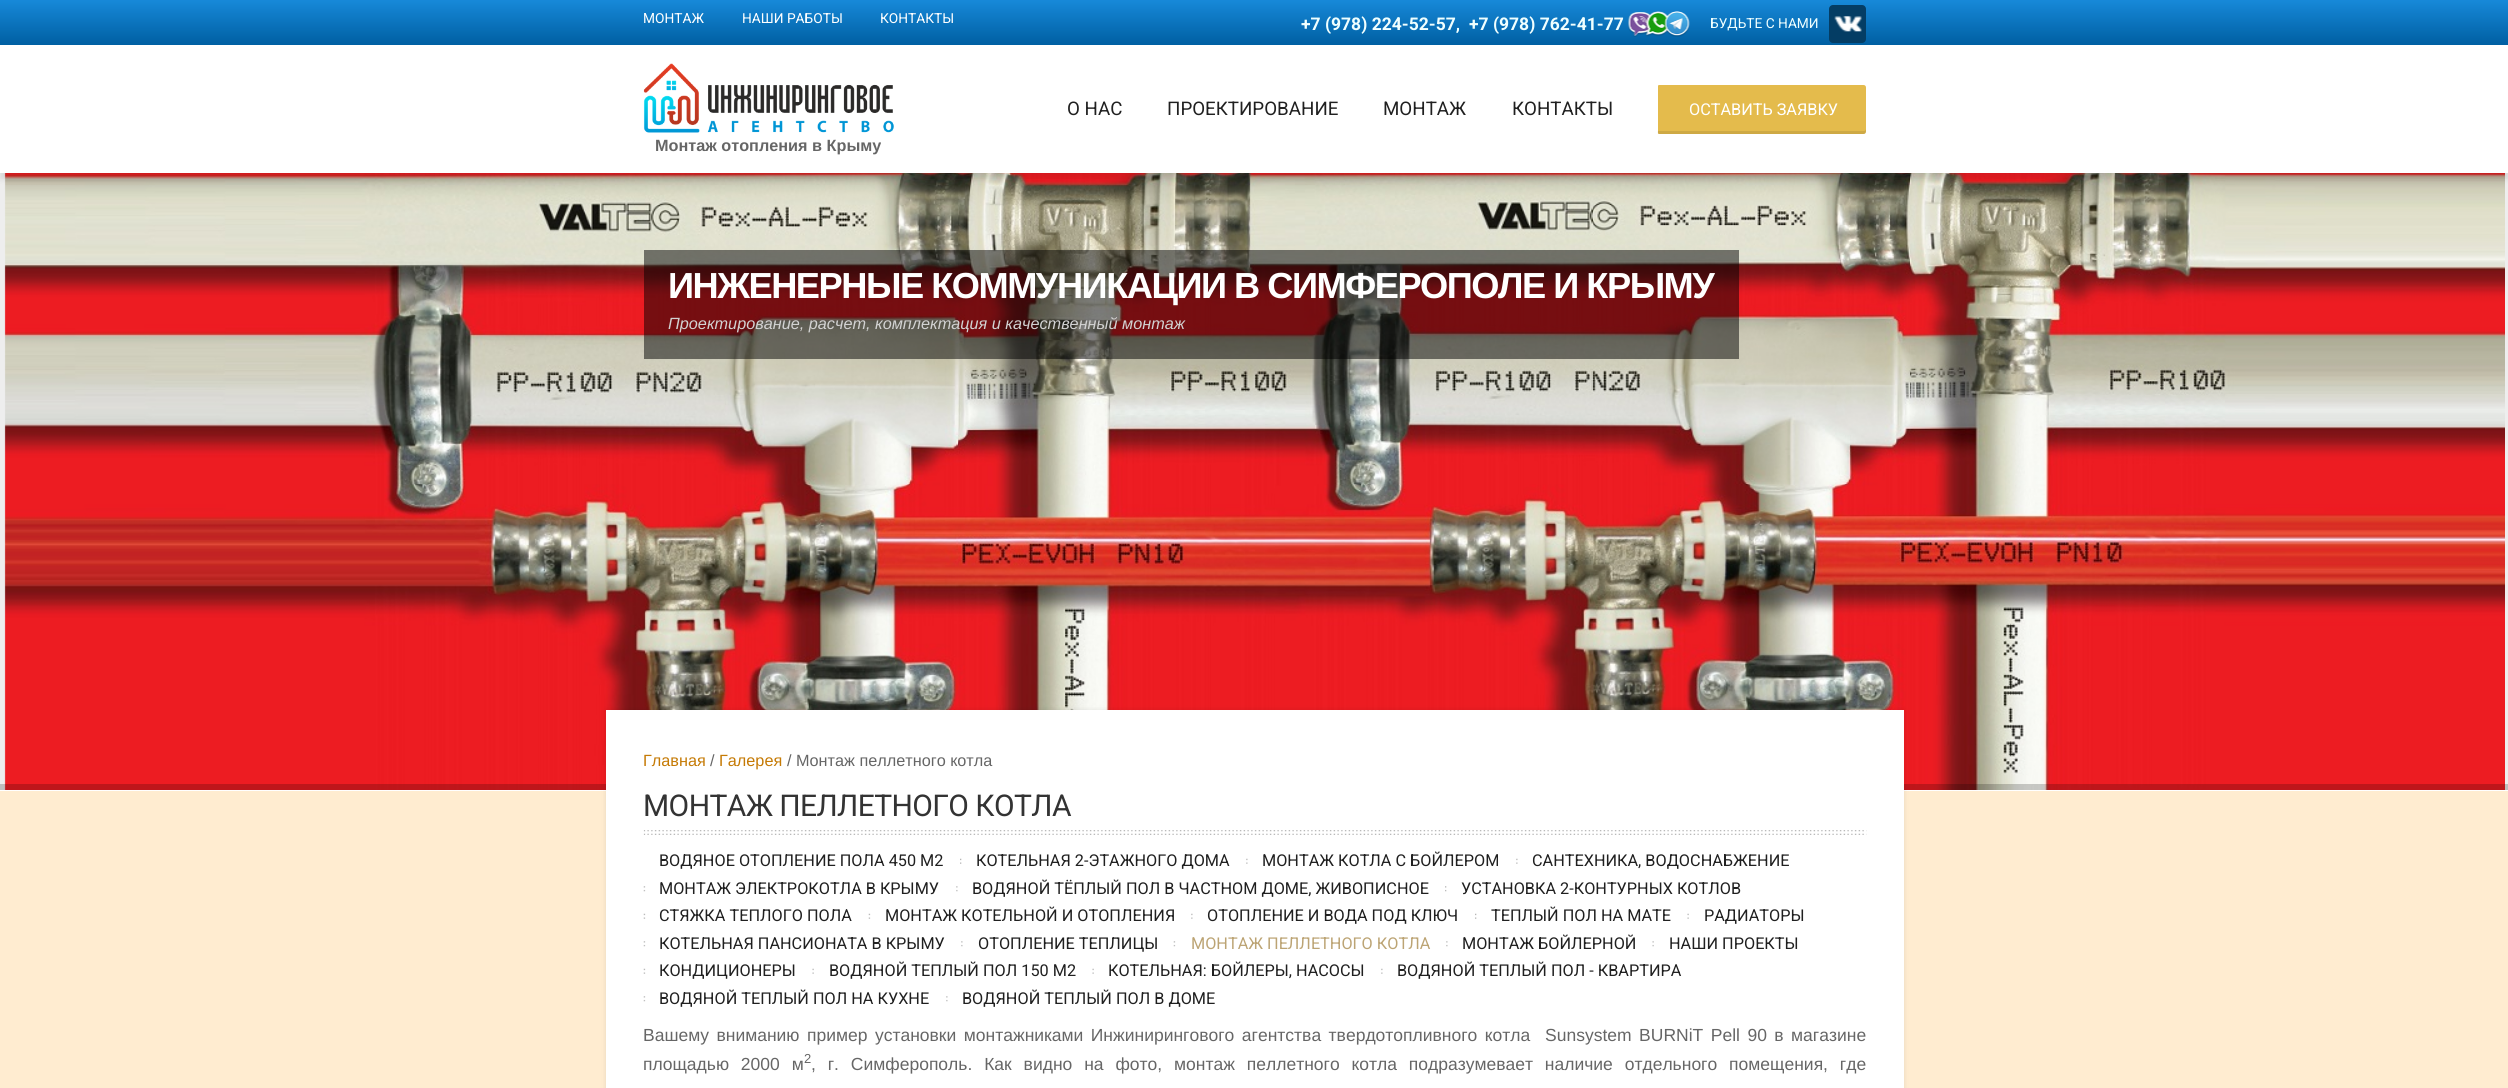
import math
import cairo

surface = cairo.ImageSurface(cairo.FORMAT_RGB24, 2508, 1088)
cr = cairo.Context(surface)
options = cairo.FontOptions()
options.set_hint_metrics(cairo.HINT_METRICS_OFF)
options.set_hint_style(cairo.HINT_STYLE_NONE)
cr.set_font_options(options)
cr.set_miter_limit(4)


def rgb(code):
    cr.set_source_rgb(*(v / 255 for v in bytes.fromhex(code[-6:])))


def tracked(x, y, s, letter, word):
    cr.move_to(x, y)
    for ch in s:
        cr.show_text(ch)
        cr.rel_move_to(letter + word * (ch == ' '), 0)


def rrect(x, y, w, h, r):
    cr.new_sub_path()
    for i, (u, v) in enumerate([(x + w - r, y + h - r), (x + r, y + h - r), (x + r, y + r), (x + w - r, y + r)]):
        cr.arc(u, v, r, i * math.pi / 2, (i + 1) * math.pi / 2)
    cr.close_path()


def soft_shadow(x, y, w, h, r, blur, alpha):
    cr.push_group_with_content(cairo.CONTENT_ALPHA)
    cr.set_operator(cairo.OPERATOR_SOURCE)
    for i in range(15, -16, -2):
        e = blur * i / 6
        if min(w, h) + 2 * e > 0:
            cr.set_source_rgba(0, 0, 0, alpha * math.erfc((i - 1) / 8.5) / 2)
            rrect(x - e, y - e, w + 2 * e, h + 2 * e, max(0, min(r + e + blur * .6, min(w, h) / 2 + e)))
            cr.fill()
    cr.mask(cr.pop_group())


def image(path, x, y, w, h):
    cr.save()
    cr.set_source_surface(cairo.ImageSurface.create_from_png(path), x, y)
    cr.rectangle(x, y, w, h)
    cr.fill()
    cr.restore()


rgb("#ffecd0")
cr.paint()
gradient = cairo.LinearGradient(1254, 0, 1254, 45)
gradient.add_color_stop_rgba(0, 0.09, 0.537, 0.851, 1)
gradient.add_color_stop_rgba(1, 0, 0.373, 0.635, 1)
cr.set_source(gradient)
cr.rectangle(0, 0, 2508, 45)
cr.fill()
image("img/1.png", 1628, 11, 62, 26)
rgb("#043d64")
rrect(1829, 5, 37, 38, 4)
cr.fill()
image("img/2.png", 1834, 16, 28, 16)
rgb("#eeeeee")
cr.rectangle(0, 173, 2508, 617)
cr.fill()
image("img/4.png", 4, 173, 2501, 617)
rgb("#000000")
soft_shadow(0, 51, 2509, 128, 0, 3, 0.1)
rgb("#ffffff")
cr.rectangle(0, 45, 2508, 128)
cr.fill()
rgb("#e4bb4c")
cr.new_path()
cr.move_to(1659, 85)
cr.line_to(1863.5, 85)
cr.curve_to(1865, 85, 1866, 86, 1866, 87.5)
cr.line_to(1866, 131.5)
cr.curve_to(1866, 133, 1865, 134, 1863.5, 134)
cr.line_to(1659, 134)
cr.curve_to(1658.5, 134, 1658, 133.5, 1658, 133)
cr.line_to(1658, 86)
cr.curve_to(1658, 85.5, 1658.5, 85, 1659, 85)
cr.close_path()
cr.fill()
cr.set_source_rgba(0, 0, 0, 0.1)
cr.new_path()
cr.move_to(1658, 130)
cr.curve_to(1658, 131, 1657, 134, 1659, 134)
cr.line_to(1864, 134)
cr.curve_to(1866, 134, 1866, 131, 1866, 129)
cr.curve_to(1866, 130, 1865, 131, 1864, 131)
cr.line_to(1659, 131)
cr.curve_to(1658, 131, 1658, 131, 1658, 130)
cr.close_path()
cr.fill()
image("img/3.png", 643, 63, 251, 70)
rgb("#ffffff")
cr.rectangle(0, 790, 2508, 1)
cr.fill()
cr.set_source_rgba(0, 0, 0, 0.5)
cr.rectangle(644, 250, 1095, 109)
cr.fill()
cr.set_source_rgba(0, 0, 0, 0.2)
cr.rectangle(0, 784, 2508, 6)
cr.fill()
rgb("#000000")
soft_shadow(606, 710, 1298, 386, 0, 2.5, 0.1)
rgb("#ffffff")
cr.rectangle(606, 710, 1298, 378)
cr.fill()
image("img/5.png", 643, 830, 1224, 5)
image("img/6.png", 960, 858, 2, 6)
image("img/7.png", 1246, 858, 2, 6)
image("img/7.png", 1516, 858, 2, 6)
image("img/8.png", 643, 886, 3, 6)
image("img/9.png", 956, 886, 2, 6)
image("img/10.png", 1445, 886, 2, 6)
image("img/11.png", 643, 913, 3, 6)
image("img/11.png", 868, 913, 3, 6)
image("img/7.png", 1191, 913, 2, 6)
image("img/6.png", 1475, 913, 2, 6)
image("img/12.png", 1687, 913, 2, 6)
image("img/8.png", 643, 941, 3, 6)
image("img/9.png", 961, 941, 2, 6)
image("img/8.png", 1173, 941, 3, 6)
image("img/9.png", 1446, 941, 2, 6)
image("img/13.png", 1652, 941, 2, 6)
image("img/11.png", 643, 968, 3, 6)
image("img/12.png", 812, 968, 2, 6)
image("img/12.png", 1092, 968, 2, 6)
image("img/7.png", 1381, 968, 2, 6)
image("img/8.png", 643, 996, 3, 6)
image("img/9.png", 946, 996, 2, 6)
cr.select_font_face("Roboto")
cr.set_font_size(13.75)
for x, y, s in [
    (643, 23, "МОНТАЖ"),
    (742, 23, "НАШИ РАБОТЫ"),
    (880, 23, "КОНТАКТЫ"),
]:
    cr.move_to(x, y)
    cr.show_text(s)
cr.select_font_face("Roboto", cairo.FONT_SLANT_NORMAL, cairo.FONT_WEIGHT_BOLD)
cr.set_font_size(17.5)
rgb("#f0ffff")
cr.move_to(1301, 30)
cr.show_text("+7 (978) 224-52-57,")
cr.move_to(1469, 30)
cr.show_text("+7 (978) 762-41-77")
cr.select_font_face("Roboto")
cr.set_font_size(13.75)
cr.move_to(1710, 28)
cr.show_text("БУДЬТЕ С НАМИ")
cr.set_font_size(18.75)
rgb("#202020")
for x, y, s in [
    (1067, 115, "О НАС"),
    (1167, 115, "ПРОЕКТИРОВАНИЕ"),
    (1383, 115, "МОНТАЖ"),
    (1512, 115, "КОНТАКТЫ"),
]:
    cr.move_to(x, y)
    cr.show_text(s)
cr.set_font_size(16.25)
rgb("#ffffff")
cr.move_to(1689, 115)
cr.show_text("ОСТАВИТЬ ЗАЯВКУ")
cr.select_font_face("Liberation Sans", cairo.FONT_SLANT_NORMAL, cairo.FONT_WEIGHT_BOLD)
rgb("#666666")
cr.move_to(655, 151)
cr.show_text("Монтаж отопления в Крыму")
cr.set_font_size(36.25)
rgb("#ffffff")
tracked(668, 298, "ИНЖЕНЕРНЫЕ КОММУНИКАЦИИ В СИМФЕРОПОЛЕ И КРЫМУ", -1.5, 0)
cr.select_font_face("Liberation Sans", cairo.FONT_SLANT_ITALIC)
cr.set_font_size(16.25)
rgb("#d2d2d2")
cr.move_to(668, 329)
cr.show_text("Проектирование, расчет, комплектация и качественный монтаж")
cr.select_font_face("Liberation Sans")
rgb("#c57a05")
cr.move_to(643, 766)
cr.show_text("Главная")
rgb("#666666")
cr.move_to(710, 766)
cr.show_text("/")
rgb("#c57a05")
cr.move_to(719, 766)
cr.show_text("Галерея")
rgb("#666666")
cr.move_to(787, 766)
cr.show_text("/ Монтаж пеллетного котла")
cr.select_font_face("Roboto")
cr.set_font_size(30)
rgb("#333333")
tracked(643, 816, "МОНТАЖ ПЕЛЛЕТНОГО КОТЛА", -0.6, 0)
cr.set_font_size(16.25)
rgb("#202020")
for x, y, s in [
    (659, 866, "ВОДЯНОЕ ОТОПЛЕНИЕ ПОЛА 450 М2"),
    (976, 866, "КОТЕЛЬНАЯ 2-ЭТАЖНОГО ДОМА"),
    (1262, 866, "МОНТАЖ КОТЛА С БОЙЛЕРОМ"),
    (1532, 866, "САНТЕХНИКА, ВОДОСНАБЖЕНИЕ"),
    (659, 894, "МОНТАЖ ЭЛЕКТРОКОТЛА В КРЫМУ"),
    (972, 894, "ВОДЯНОЙ ТЁПЛЫЙ ПОЛ В ЧАСТНОМ ДОМЕ, ЖИВОПИСНОЕ"),
    (1461, 894, "УСТАНОВКА 2-КОНТУРНЫХ КОТЛОВ"),
    (659, 921, "СТЯЖКА ТЕПЛОГО ПОЛА"),
    (885, 921, "МОНТАЖ КОТЕЛЬНОЙ И ОТОПЛЕНИЯ"),
    (1207, 921, "ОТОПЛЕНИЕ И ВОДА ПОД КЛЮЧ"),
    (1491, 921, "ТЕПЛЫЙ ПОЛ НА МАТЕ"),
    (1704, 921, "РАДИАТОРЫ"),
    (659, 949, "КОТЕЛЬНАЯ ПАНСИОНАТА В КРЫМУ"),
    (978, 949, "ОТОПЛЕНИЕ ТЕПЛИЦЫ"),
]:
    cr.move_to(x, y)
    cr.show_text(s)
rgb("#bca474")
cr.move_to(1191, 949)
cr.show_text("МОНТАЖ ПЕЛЛЕТНОГО КОТЛА")
rgb("#202020")
for x, y, s in [
    (1462, 949, "МОНТАЖ БОЙЛЕРНОЙ"),
    (1669, 949, "НАШИ ПРОЕКТЫ"),
    (659, 976, "КОНДИЦИОНЕРЫ"),
    (829, 976, "ВОДЯНОЙ ТЕПЛЫЙ ПОЛ 150 М2"),
    (1108, 976, "КОТЕЛЬНАЯ: БОЙЛЕРЫ, НАСОСЫ"),
    (1397, 976, "ВОДЯНОЙ ТЕПЛЫЙ ПОЛ - КВАРТИРА"),
    (659, 1004, "ВОДЯНОЙ ТЕПЛЫЙ ПОЛ НА КУХНЕ"),
    (962, 1004, "ВОДЯНОЙ ТЕПЛЫЙ ПОЛ В ДОМЕ"),
]:
    cr.move_to(x, y)
    cr.show_text(s)
cr.select_font_face("Liberation Sans")
cr.set_font_size(17.5)
rgb("#666666")
tracked(643, 1041, "Вашему вниманию пример установки монтажниками Инжинирингового агентства твердотопливного котла  Sunsystem BURNiT Pell 90 в магазине", 0, 2.6)
tracked(643, 1070, "площадью 2000 м", 0, 7)
cr.set_font_size(13)
cr.move_to(804, 1063)
cr.show_text("2")
cr.set_font_size(17.5)
tracked(811, 1070, ", г. Симферополь. Как видно на фото, монтаж пеллетного котла подразумевает наличие отдельного помещения, где", 0, 7)
surface.write_to_png("page.png")
